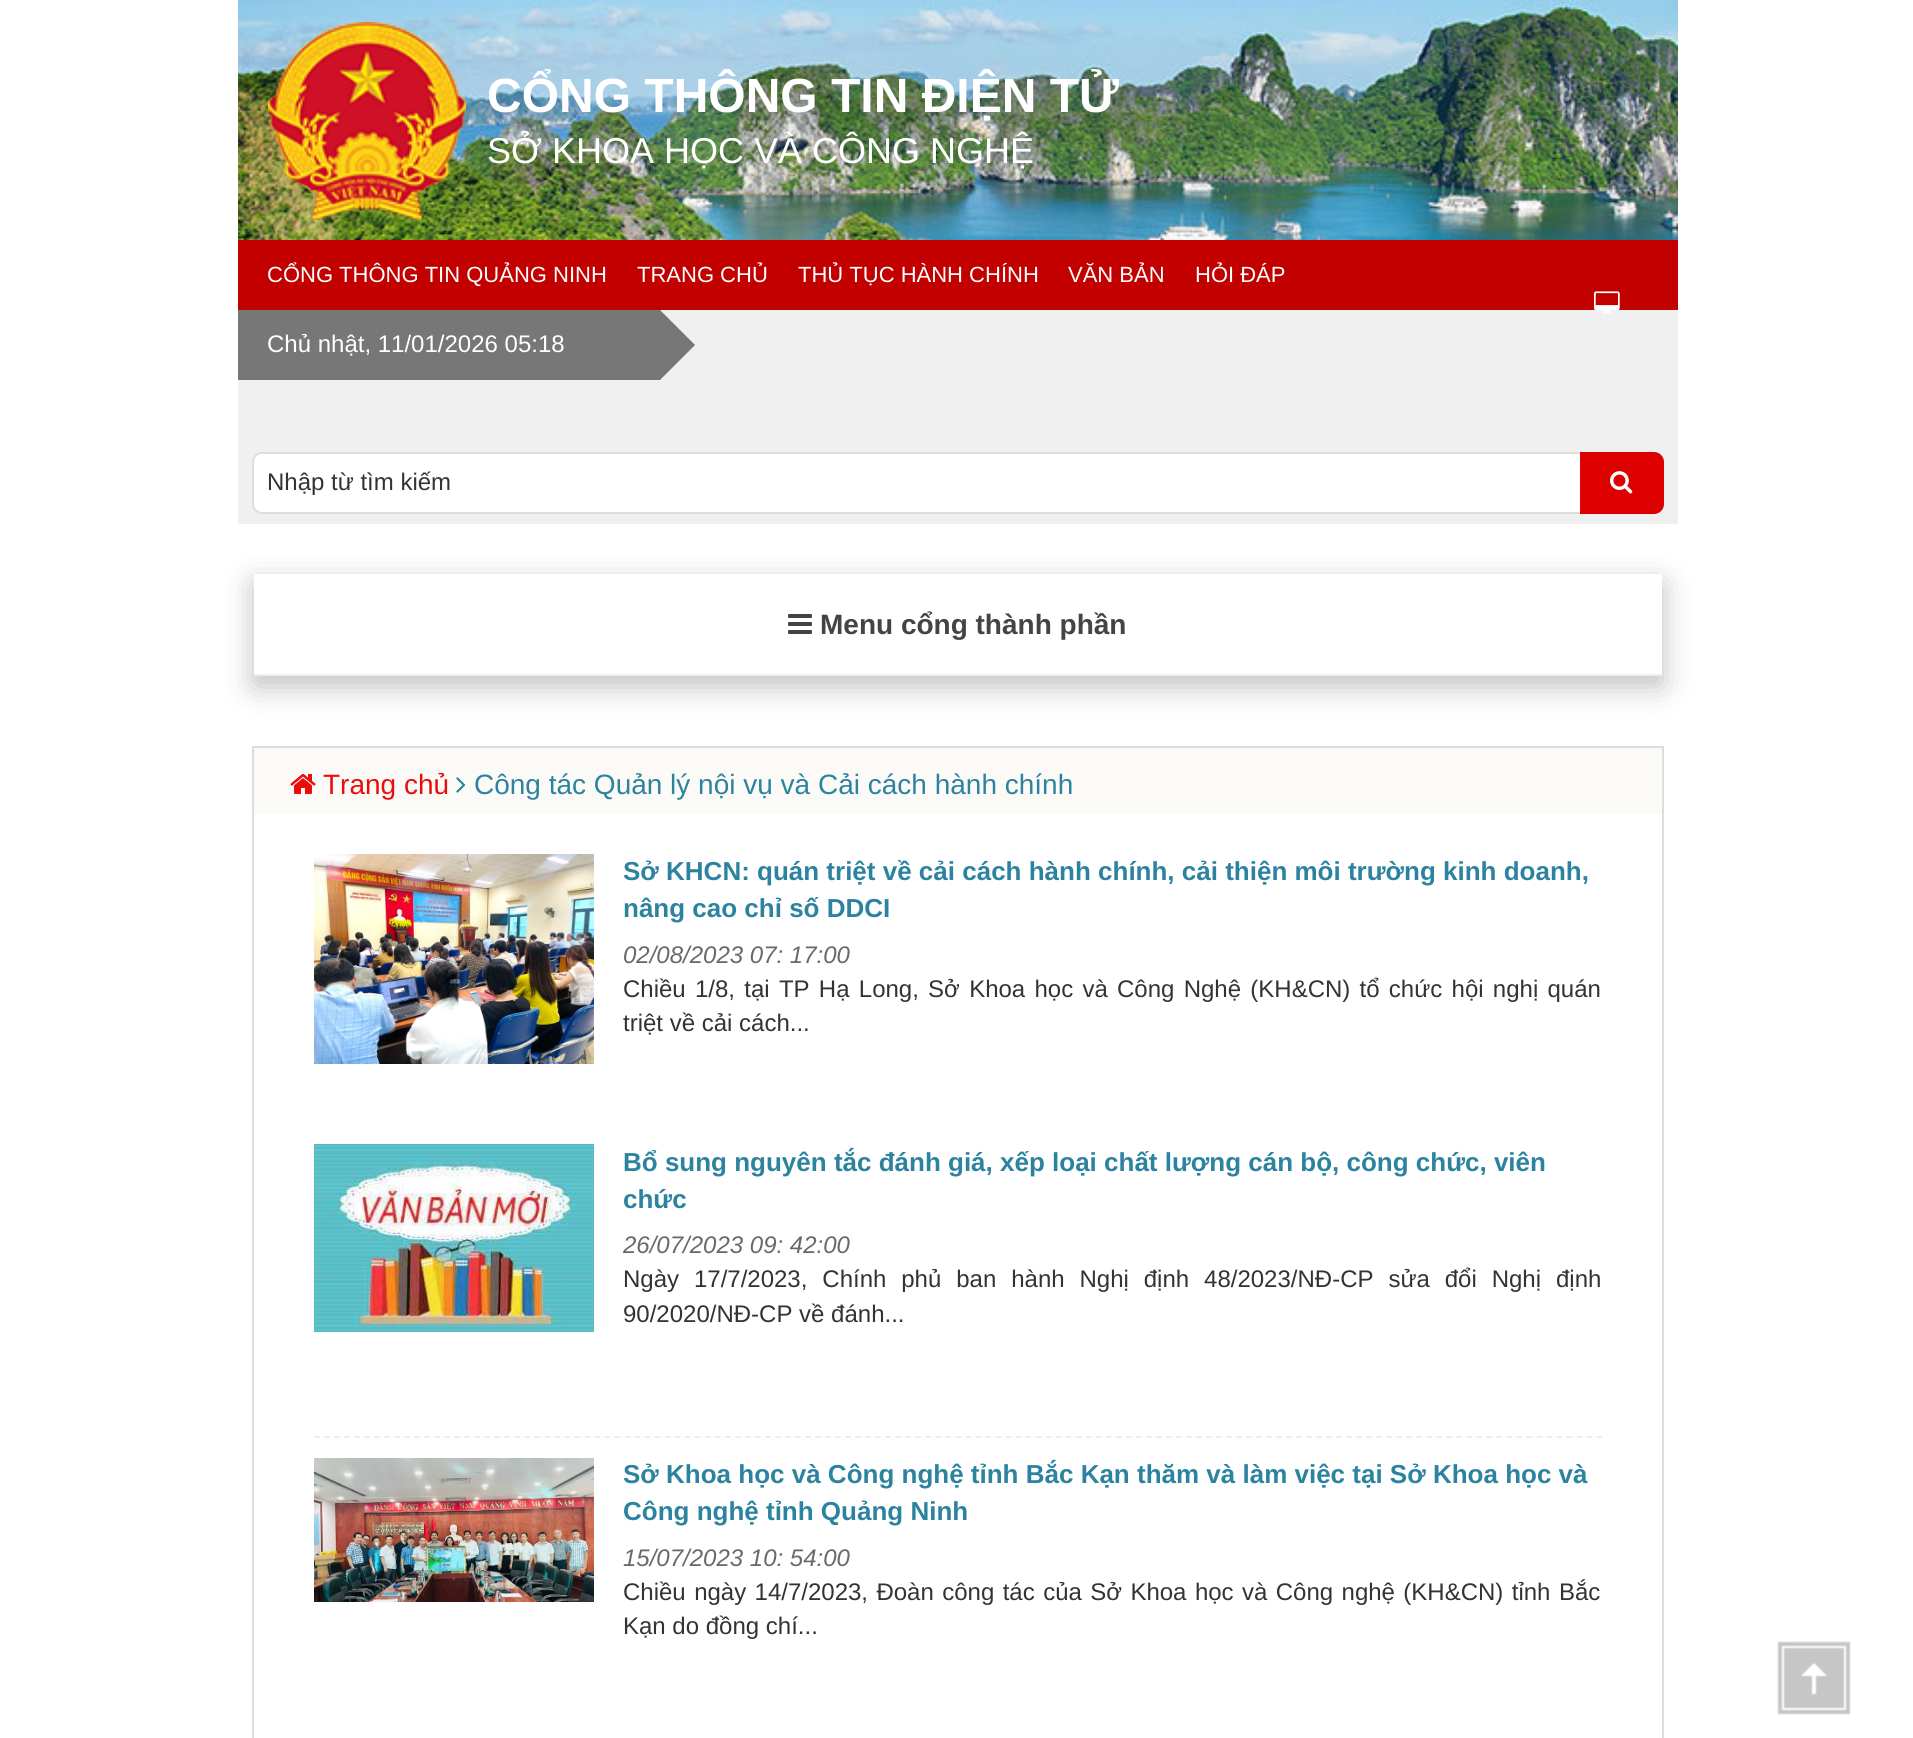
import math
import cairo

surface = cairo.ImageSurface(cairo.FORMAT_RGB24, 1913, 1738)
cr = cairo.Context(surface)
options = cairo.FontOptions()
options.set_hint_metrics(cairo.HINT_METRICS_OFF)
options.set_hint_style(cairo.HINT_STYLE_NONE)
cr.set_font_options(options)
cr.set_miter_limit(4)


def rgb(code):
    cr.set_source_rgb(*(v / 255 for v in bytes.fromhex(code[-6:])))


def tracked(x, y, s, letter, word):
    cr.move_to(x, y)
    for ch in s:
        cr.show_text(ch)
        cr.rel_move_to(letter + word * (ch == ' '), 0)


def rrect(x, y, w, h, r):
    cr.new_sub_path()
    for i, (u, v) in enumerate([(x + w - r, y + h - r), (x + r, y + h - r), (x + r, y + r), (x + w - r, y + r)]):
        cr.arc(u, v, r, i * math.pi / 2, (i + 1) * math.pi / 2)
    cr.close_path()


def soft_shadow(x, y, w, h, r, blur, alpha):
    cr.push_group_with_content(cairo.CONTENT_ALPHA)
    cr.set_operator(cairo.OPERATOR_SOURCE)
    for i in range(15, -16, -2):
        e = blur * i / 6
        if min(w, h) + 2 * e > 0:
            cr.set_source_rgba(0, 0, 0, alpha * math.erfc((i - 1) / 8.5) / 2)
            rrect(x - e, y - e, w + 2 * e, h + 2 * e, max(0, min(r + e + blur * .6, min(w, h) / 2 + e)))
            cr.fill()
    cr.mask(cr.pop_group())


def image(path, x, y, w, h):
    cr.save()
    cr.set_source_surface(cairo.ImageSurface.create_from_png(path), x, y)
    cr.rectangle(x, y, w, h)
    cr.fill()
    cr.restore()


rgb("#ffffff")
cr.paint()
image("img/1.png", 238, 0, 1440, 240)
image("img/2.png", 268, 22, 198, 198)
rgb("#c20000")
cr.rectangle(238, 240, 1440, 70)
cr.fill()
rgb("#f0f0f0")
cr.rectangle(238, 310, 1440, 214)
cr.fill()
image("img/3.png", 1594, 291, 26, 23)
rgb("#777777")
cr.rectangle(238, 310, 394, 70)
cr.fill()
cr.save()
cr.rectangle(238, 310, 1440, 70)
cr.clip()
cr.new_path()
cr.move_to(646, 296)
cr.line_to(695, 345)
cr.line_to(646, 394)
cr.line_to(597, 345)
cr.close_path()
cr.fill()
cr.restore()
rgb("#ffffff")
rrect(253, 453, 1410, 60, 9)
cr.fill_preserve()
rgb("#dddddd")
cr.stroke()
rgb("#dd0000")
cr.new_path()
cr.move_to(1580, 452)
cr.line_to(1654, 452)
cr.curve_to(1659.5, 452, 1664, 456.5, 1664, 462)
cr.line_to(1664, 504)
cr.curve_to(1664, 509.5, 1659.5, 514, 1654, 514)
cr.line_to(1580, 514)
cr.close_path()
cr.fill()
image("img/4.png", 1610, 471, 23, 23)
cr.save()
cr.set_fill_rule(cairo.FILL_RULE_EVEN_ODD)
cr.new_path()
cr.move_to(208, 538)
cr.line_to(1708, 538)
cr.line_to(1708, 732)
cr.line_to(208, 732)
cr.close_path()
cr.move_to(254, 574)
cr.line_to(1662, 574)
cr.line_to(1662, 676)
cr.line_to(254, 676)
cr.close_path()
cr.clip()
rgb("#000000")
soft_shadow(254, 584, 1408, 102, 0, 15, 0.25)
cr.restore()
rgb("#eeeeee")
cr.rectangle(254, 674, 1408, 2)
cr.fill()
image("img/5.png", 788, 614, 24, 20)
cr.rectangle(253, 747, 1410, 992)
rgb("#dddddd")
cr.stroke()
rgb("#fcfaf7")
cr.rectangle(254, 748, 1408, 66)
cr.fill()
image("img/6.png", 290, 774, 26, 20)
image("img/7.png", 456, 777, 10, 16)
image("img/8.png", 314, 854, 280, 210)
cr.new_path()
cr.move_to(314, 1437)
cr.line_to(1602, 1437)
rgb("#eeeeee")
cr.set_dash([6, 4.02])
cr.stroke()
image("img/9.png", 314, 1144, 280, 188)
image("img/10.png", 314, 1458, 280, 144)
image("img/11.png", 1777, 1641, 74, 74)
cr.select_font_face("Liberation Sans", cairo.FONT_SLANT_NORMAL, cairo.FONT_WEIGHT_BOLD)
cr.set_font_size(48)
rgb("#ffffff")
cr.move_to(487, 112)
cr.show_text("CỔNG THÔNG TIN ĐIỆN TỬ")
cr.select_font_face("Liberation Sans")
cr.set_font_size(36)
cr.move_to(487, 163)
cr.show_text("SỞ KHOA HỌC VÀ CÔNG NGHỆ")
cr.set_font_size(22)
for x, y, s in [
    (267, 282, "CỔNG THÔNG TIN QUẢNG NINH"),
    (637, 282, "TRANG CHỦ"),
    (798, 282, "THỦ TỤC HÀNH CHÍNH"),
    (1068, 282, "VĂN BẢN"),
    (1195, 282, "HỎI ĐÁP"),
]:
    cr.move_to(x, y)
    cr.show_text(s)
cr.set_font_size(24)
cr.move_to(267, 352)
cr.show_text("Chủ nhật, 11/01/2026 05:18")
rgb("#333333")
cr.move_to(267, 490)
cr.show_text("Nhập từ tìm kiếm")
cr.select_font_face("Liberation Sans", cairo.FONT_SLANT_NORMAL, cairo.FONT_WEIGHT_BOLD)
cr.set_font_size(28)
rgb("#444444")
cr.move_to(820, 634)
cr.show_text("Menu cổng thành phần")
cr.select_font_face("Liberation Sans")
rgb("#eb0c0c")
cr.move_to(323, 794)
cr.show_text("Trang chủ")
rgb("#2c83a0")
cr.move_to(474, 794)
cr.show_text("Công tác Quản lý nội vụ và Cải cách hành chính")
cr.select_font_face("Liberation Sans", cairo.FONT_SLANT_NORMAL, cairo.FONT_WEIGHT_BOLD)
cr.set_font_size(26)
cr.move_to(623, 880)
cr.show_text("Sở KHCN: quán triệt về cải cách hành chính, cải thiện môi trường kinh doanh,")
cr.move_to(623, 917)
cr.show_text("nâng cao chỉ số DDCI")
cr.select_font_face("Liberation Sans", cairo.FONT_SLANT_ITALIC)
cr.set_font_size(24)
rgb("#696969")
cr.move_to(623, 963)
cr.show_text("02/08/2023 07: 17:00")
cr.select_font_face("Liberation Sans")
rgb("#333333")
tracked(623, 997, "Chiều 1/8, tại TP Hạ Long, Sở Khoa học và Công Nghệ (KH&CN) tổ chức hội nghị quán", 0, 2.6)
cr.move_to(623, 1031)
cr.show_text("triệt về cải cách...")
cr.select_font_face("Liberation Sans", cairo.FONT_SLANT_NORMAL, cairo.FONT_WEIGHT_BOLD)
cr.set_font_size(26)
rgb("#2c83a0")
cr.move_to(623, 1171)
cr.show_text("Bổ sung nguyên tắc đánh giá, xếp loại chất lượng cán bộ, công chức, viên")
cr.move_to(623, 1208)
cr.show_text("chức")
cr.select_font_face("Liberation Sans", cairo.FONT_SLANT_ITALIC)
cr.set_font_size(24)
rgb("#696969")
cr.move_to(623, 1253)
cr.show_text("26/07/2023 09: 42:00")
cr.select_font_face("Liberation Sans")
rgb("#333333")
tracked(623, 1287, "Ngày 17/7/2023, Chính phủ ban hành Nghị định 48/2023/NĐ-CP sửa đổi Nghị định", 0, 8.25)
cr.move_to(623, 1322)
cr.show_text("90/2020/NĐ-CP về đánh...")
cr.select_font_face("Liberation Sans", cairo.FONT_SLANT_NORMAL, cairo.FONT_WEIGHT_BOLD)
cr.set_font_size(26)
rgb("#2c83a0")
cr.move_to(623, 1483)
cr.show_text("Sở Khoa học và Công nghệ tỉnh Bắc Kạn thăm và làm việc tại Sở Khoa học và")
cr.move_to(623, 1520)
cr.show_text("Công nghệ tỉnh Quảng Ninh")
cr.select_font_face("Liberation Sans", cairo.FONT_SLANT_ITALIC)
cr.set_font_size(24)
rgb("#696969")
cr.move_to(623, 1566)
cr.show_text("15/07/2023 10: 54:00")
cr.select_font_face("Liberation Sans")
rgb("#333333")
tracked(623, 1600, "Chiều ngày 14/7/2023, Đoàn công tác của Sở Khoa học và Công nghệ (KH&CN) tỉnh Bắc", 0, 1.75)
cr.move_to(623, 1634)
cr.show_text("Kạn do đồng chí...")
surface.write_to_png("page.png")
